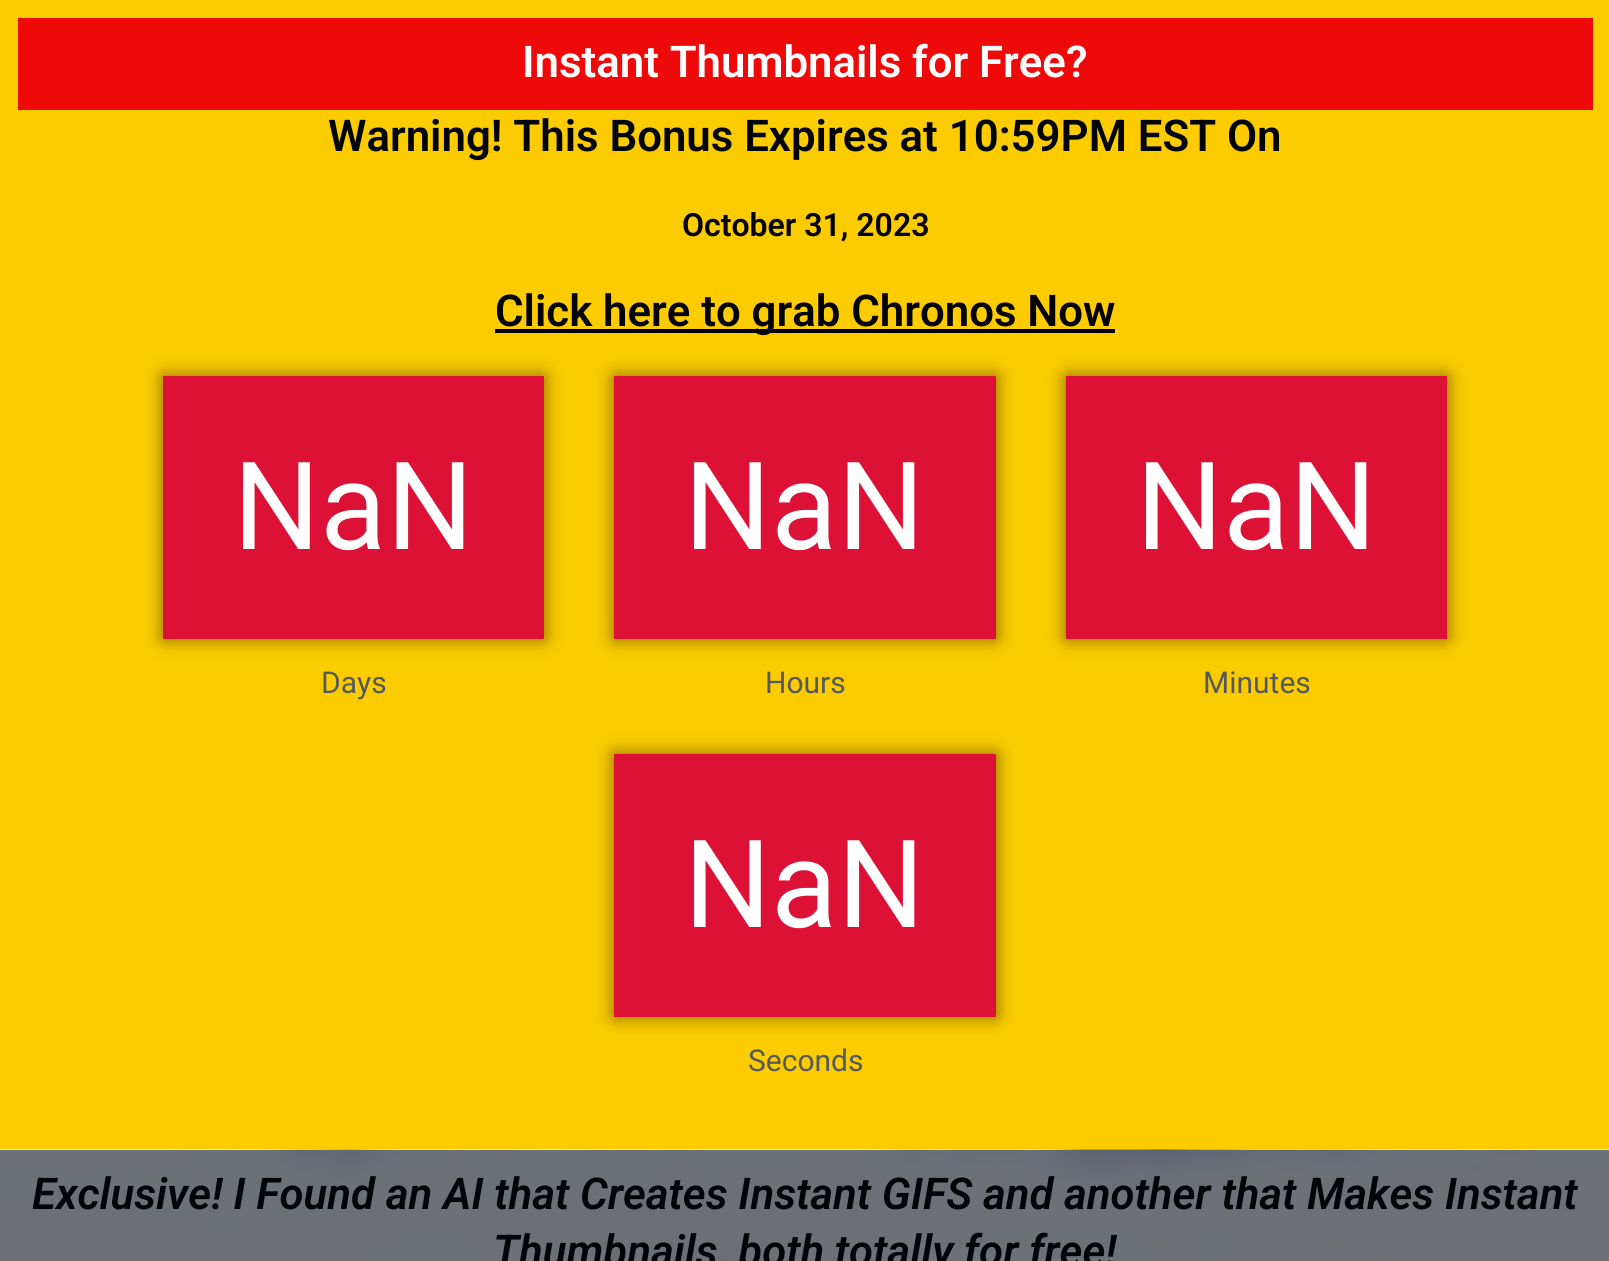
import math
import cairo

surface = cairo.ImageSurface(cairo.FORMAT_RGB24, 1609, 1261)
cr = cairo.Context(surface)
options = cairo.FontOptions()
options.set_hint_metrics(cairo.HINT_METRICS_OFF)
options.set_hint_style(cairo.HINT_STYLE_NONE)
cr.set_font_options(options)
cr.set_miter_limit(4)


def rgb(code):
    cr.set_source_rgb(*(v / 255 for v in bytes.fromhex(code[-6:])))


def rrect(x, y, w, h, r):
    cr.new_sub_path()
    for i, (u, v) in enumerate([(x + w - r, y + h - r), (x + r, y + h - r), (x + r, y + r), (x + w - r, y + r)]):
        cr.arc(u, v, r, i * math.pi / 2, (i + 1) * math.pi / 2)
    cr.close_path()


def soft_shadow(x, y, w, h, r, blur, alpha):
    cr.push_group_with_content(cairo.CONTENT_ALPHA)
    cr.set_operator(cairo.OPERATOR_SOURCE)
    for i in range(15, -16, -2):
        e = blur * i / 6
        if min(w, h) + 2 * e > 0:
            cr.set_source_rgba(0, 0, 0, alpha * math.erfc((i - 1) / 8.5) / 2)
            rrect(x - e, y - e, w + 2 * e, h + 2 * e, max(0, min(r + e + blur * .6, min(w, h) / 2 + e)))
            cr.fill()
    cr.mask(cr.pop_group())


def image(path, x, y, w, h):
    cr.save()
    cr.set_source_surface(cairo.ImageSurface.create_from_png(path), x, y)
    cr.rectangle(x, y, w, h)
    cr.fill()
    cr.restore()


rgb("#fccc01")
cr.paint()
rgb("#ef0a0a")
cr.rectangle(18, 18, 1575, 92)
cr.fill()
rgb("#000000")
cr.rectangle(495, 329, 620, 4)
cr.fill()
rgb("#000000")
soft_shadow(163, 376, 381, 263, 0, 9, 0.5)
rgb("#dd1136")
cr.rectangle(163, 376, 381, 263)
cr.fill()
rgb("#000000")
soft_shadow(614, 376, 382, 263, 0, 9, 0.5)
rgb("#dd1136")
cr.rectangle(614, 376, 382, 263)
cr.fill()
rgb("#000000")
soft_shadow(1066, 376, 381, 263, 0, 9, 0.5)
rgb("#dd1136")
cr.rectangle(1066, 376, 381, 263)
cr.fill()
rgb("#000000")
soft_shadow(614, 754, 382, 263, 0, 9, 0.5)
rgb("#dd1136")
cr.rectangle(614, 754, 382, 263)
cr.fill()
image("img/1.png", 0, 1149, 1609, 112)
cr.select_font_face("Roboto SemiBold")
cr.set_font_size(43.75)
rgb("#ffffff")
cr.move_to(522, 77)
cr.show_text("Instant Thumbnails for Free?")
rgb("#000406")
cr.move_to(328, 151)
cr.show_text("Warning! This Bonus Expires at 10:59PM EST On")
cr.set_font_size(32)
rgb("#000000")
cr.move_to(682, 236)
cr.show_text("October 31, 2023")
cr.set_font_size(43.75)
cr.move_to(495, 326)
cr.show_text("Click here to grab Chronos Now")
cr.select_font_face("Roboto")
cr.set_font_size(122)
rgb("#ffffff")
cr.move_to(233, 549)
cr.show_text("NaN")
cr.set_font_size(30)
rgb("#54595f")
cr.move_to(321, 693)
cr.show_text("Days")
cr.set_font_size(122)
rgb("#ffffff")
cr.move_to(684, 549)
cr.show_text("NaN")
cr.set_font_size(30)
rgb("#54595f")
cr.move_to(765, 693)
cr.show_text("Hours")
cr.set_font_size(122)
rgb("#ffffff")
cr.move_to(1136, 549)
cr.show_text("NaN")
cr.set_font_size(30)
rgb("#54595f")
cr.move_to(1203, 693)
cr.show_text("Minutes")
cr.set_font_size(122)
rgb("#ffffff")
cr.move_to(684, 927)
cr.show_text("NaN")
cr.set_font_size(30)
rgb("#54595f")
cr.move_to(748, 1071)
cr.show_text("Seconds")
cr.select_font_face("Roboto SemiBold", cairo.FONT_SLANT_ITALIC)
cr.set_font_size(43.75)
rgb("#000406")
cr.move_to(32, 1209)
cr.show_text("Exclusive! I Found an AI that Creates Instant GIFS and another that Makes Instant")
cr.move_to(493, 1266)
cr.show_text("Thumbnails, both totally for free!")
surface.write_to_png("page.png")
